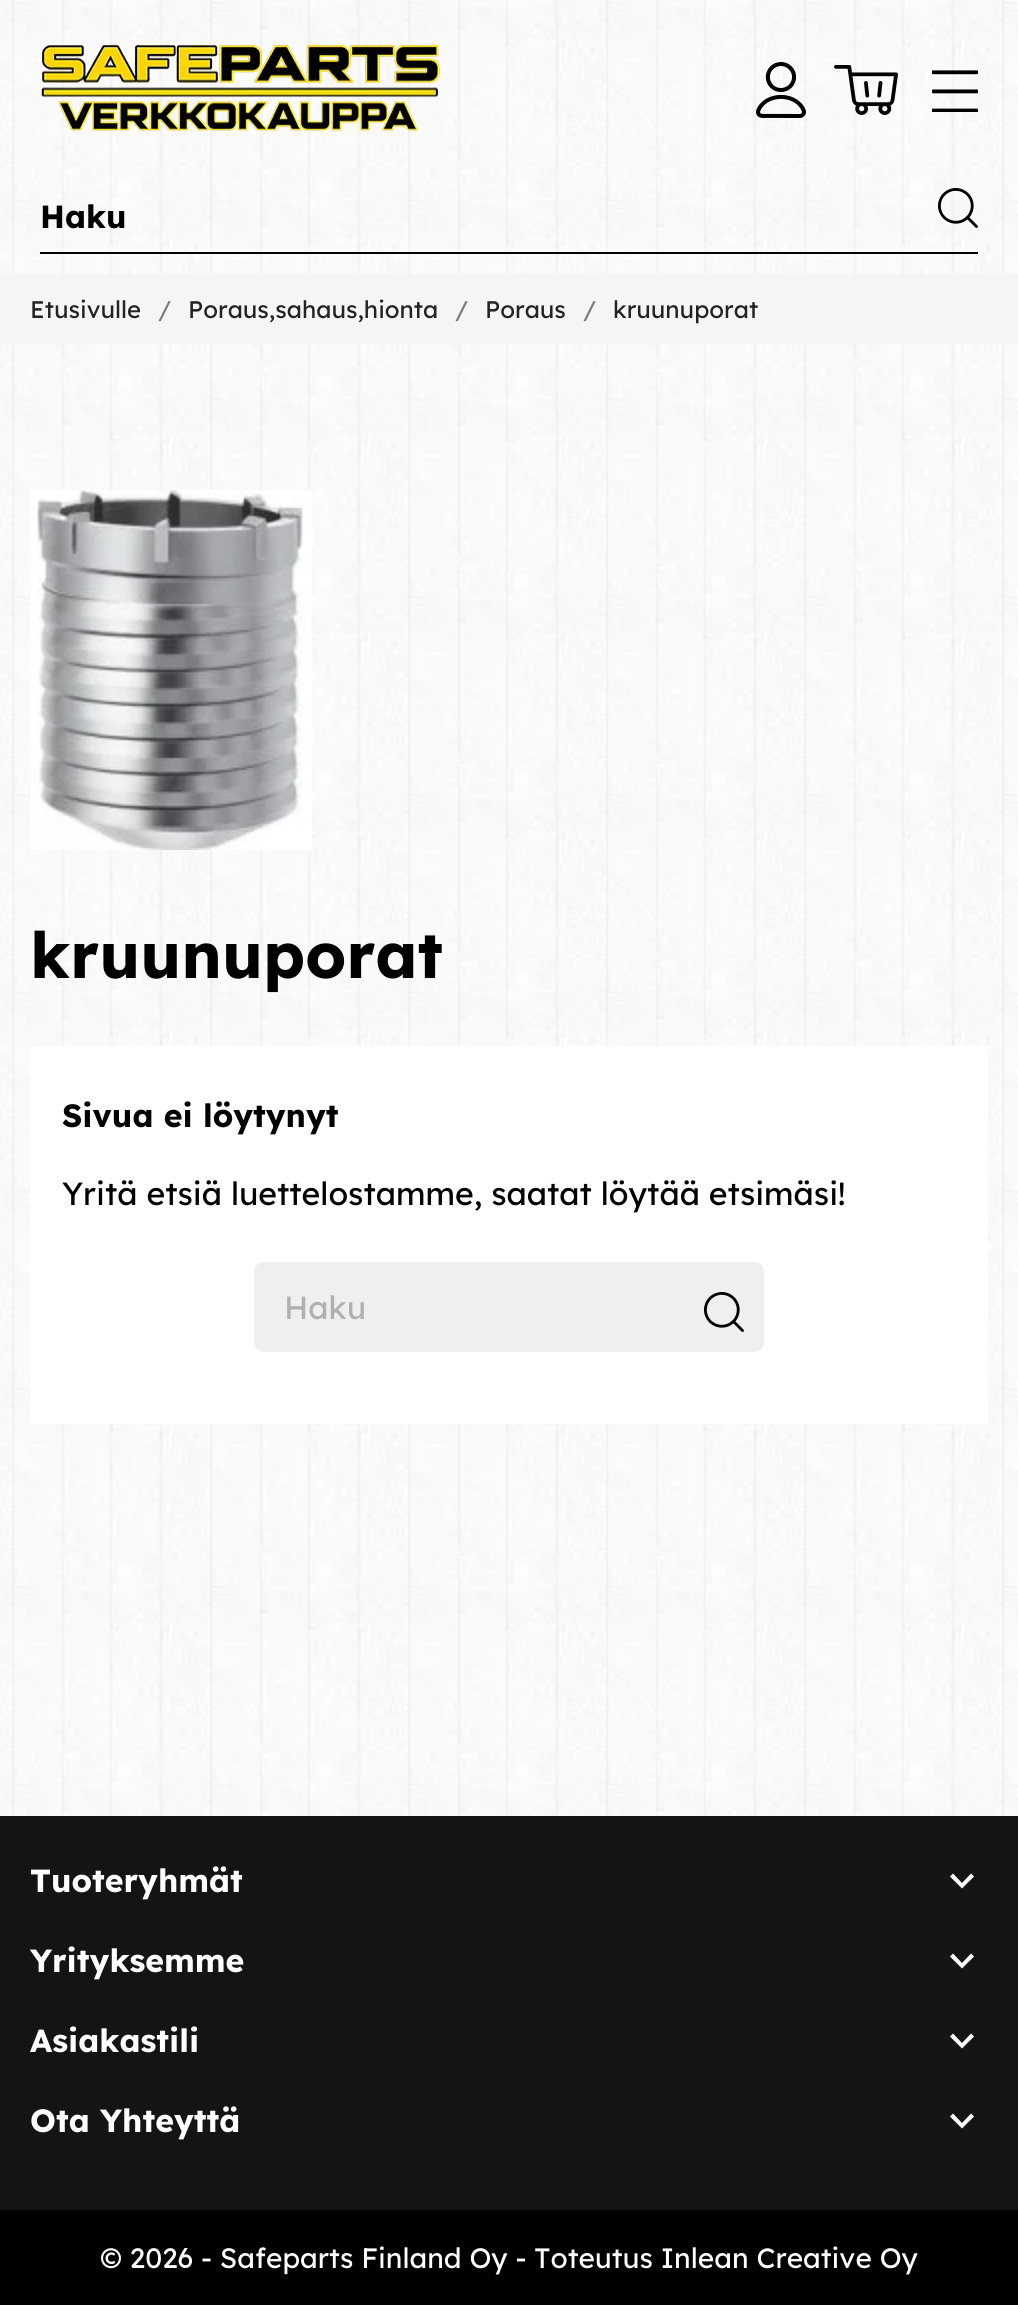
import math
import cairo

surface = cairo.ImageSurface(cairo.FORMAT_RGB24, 1018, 2305)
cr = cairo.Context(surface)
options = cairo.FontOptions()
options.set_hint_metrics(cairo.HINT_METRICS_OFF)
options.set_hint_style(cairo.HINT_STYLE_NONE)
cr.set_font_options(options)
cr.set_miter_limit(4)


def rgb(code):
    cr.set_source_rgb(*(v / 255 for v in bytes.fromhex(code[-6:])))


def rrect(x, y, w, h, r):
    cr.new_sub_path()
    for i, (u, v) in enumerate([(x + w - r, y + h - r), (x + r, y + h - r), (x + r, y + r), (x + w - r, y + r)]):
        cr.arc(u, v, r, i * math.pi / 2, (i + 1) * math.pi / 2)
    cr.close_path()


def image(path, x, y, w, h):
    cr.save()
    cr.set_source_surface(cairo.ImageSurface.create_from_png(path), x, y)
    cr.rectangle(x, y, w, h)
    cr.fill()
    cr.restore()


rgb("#ffffff")
cr.paint()
image("img/1.png", 0, 0, 1018, 1816)
image("img/2.png", 41, 44, 399, 87)
image("img/3.png", 756, 62, 50, 56)
image("img/4.png", 834, 65, 64, 50)
image("img/5.png", 932, 70, 46, 42)
rgb("#000000")
cr.rectangle(40, 252, 938, 2)
cr.fill()
image("img/6.png", 938, 188, 40, 40)
rgb("#f5f5f5")
cr.rectangle(0, 274, 1018, 70)
cr.fill()
image("img/7.png", 30, 490, 282, 360)
rgb("#ffffff")
cr.rectangle(30, 1046, 958, 378)
cr.fill()
rgb("#efefef")
rrect(254, 1262, 510, 90, 10)
cr.fill()
image("img/8.png", 704, 1292, 40, 40)
rgb("#141414")
cr.rectangle(0, 1816, 1018, 394)
cr.fill()
rgb("#ffffff")
cr.new_path()
cr.move_to(953, 1873.5)
cr.line_to(962, 1883)
cr.line_to(971, 1873.5)
cr.line_to(974, 1876.5)
cr.line_to(962, 1888.5)
cr.line_to(950, 1876.5)
cr.close_path()
cr.fill()
cr.new_path()
cr.move_to(953, 1953.5)
cr.line_to(962, 1963)
cr.line_to(971, 1953.5)
cr.line_to(974, 1956.5)
cr.line_to(962, 1968.5)
cr.line_to(950, 1956.5)
cr.close_path()
cr.fill()
cr.new_path()
cr.move_to(953, 2033.5)
cr.line_to(962, 2043)
cr.line_to(971, 2033.5)
cr.line_to(974, 2036.5)
cr.line_to(962, 2048.5)
cr.line_to(950, 2036.5)
cr.close_path()
cr.fill()
cr.new_path()
cr.move_to(953, 2113.5)
cr.line_to(962, 2123)
cr.line_to(971, 2113.5)
cr.line_to(974, 2116.5)
cr.line_to(962, 2128.5)
cr.line_to(950, 2116.5)
cr.close_path()
cr.fill()
rgb("#000000")
cr.rectangle(0, 2210, 1018, 95)
cr.fill()
cr.select_font_face("Lexend", cairo.FONT_SLANT_NORMAL, cairo.FONT_WEIGHT_BOLD)
cr.set_font_size(32)
cr.move_to(40, 228)
cr.show_text("Haku")
cr.select_font_face("Lexend")
cr.set_font_size(24)
rgb("#232323")
cr.move_to(30, 318)
cr.show_text("Etusivulle")
rgb("#7a7a7a")
cr.move_to(158, 318)
cr.show_text("/")
rgb("#232323")
cr.move_to(188, 318)
cr.show_text("Poraus,sahaus,hionta")
rgb("#7a7a7a")
cr.move_to(455, 318)
cr.show_text("/")
rgb("#232323")
cr.move_to(485, 318)
cr.show_text("Poraus")
rgb("#7a7a7a")
cr.move_to(583, 318)
cr.show_text("/")
rgb("#232323")
cr.move_to(613, 318)
cr.show_text("kruunuporat")
cr.select_font_face("Lexend", cairo.FONT_SLANT_NORMAL, cairo.FONT_WEIGHT_BOLD)
cr.set_font_size(64)
rgb("#000000")
cr.move_to(30, 978)
cr.show_text("kruunuporat")
cr.set_font_size(32)
cr.move_to(62, 1127)
cr.show_text("Sivua ei löytynyt")
cr.select_font_face("Lexend")
cr.move_to(62, 1205)
cr.show_text("Yritä etsiä luettelostamme, saatat löytää etsimäsi!")
rgb("#b0b0b0")
cr.move_to(284, 1319)
cr.show_text("Haku")
cr.select_font_face("Lexend", cairo.FONT_SLANT_NORMAL, cairo.FONT_WEIGHT_BOLD)
rgb("#ffffff")
for x, y, s in [
    (30, 1892, "Tuoteryhmät"),
    (30, 1972, "Yrityksemme"),
    (30, 2052, "Asiakastili"),
    (30, 2132, "Ota Yhteyttä"),
]:
    cr.move_to(x, y)
    cr.show_text(s)
cr.select_font_face("Lexend")
cr.set_font_size(28)
cr.move_to(100, 2268)
cr.show_text("© 2026 - Safeparts Finland Oy - Toteutus Inlean Creative Oy")
surface.write_to_png("page.png")
